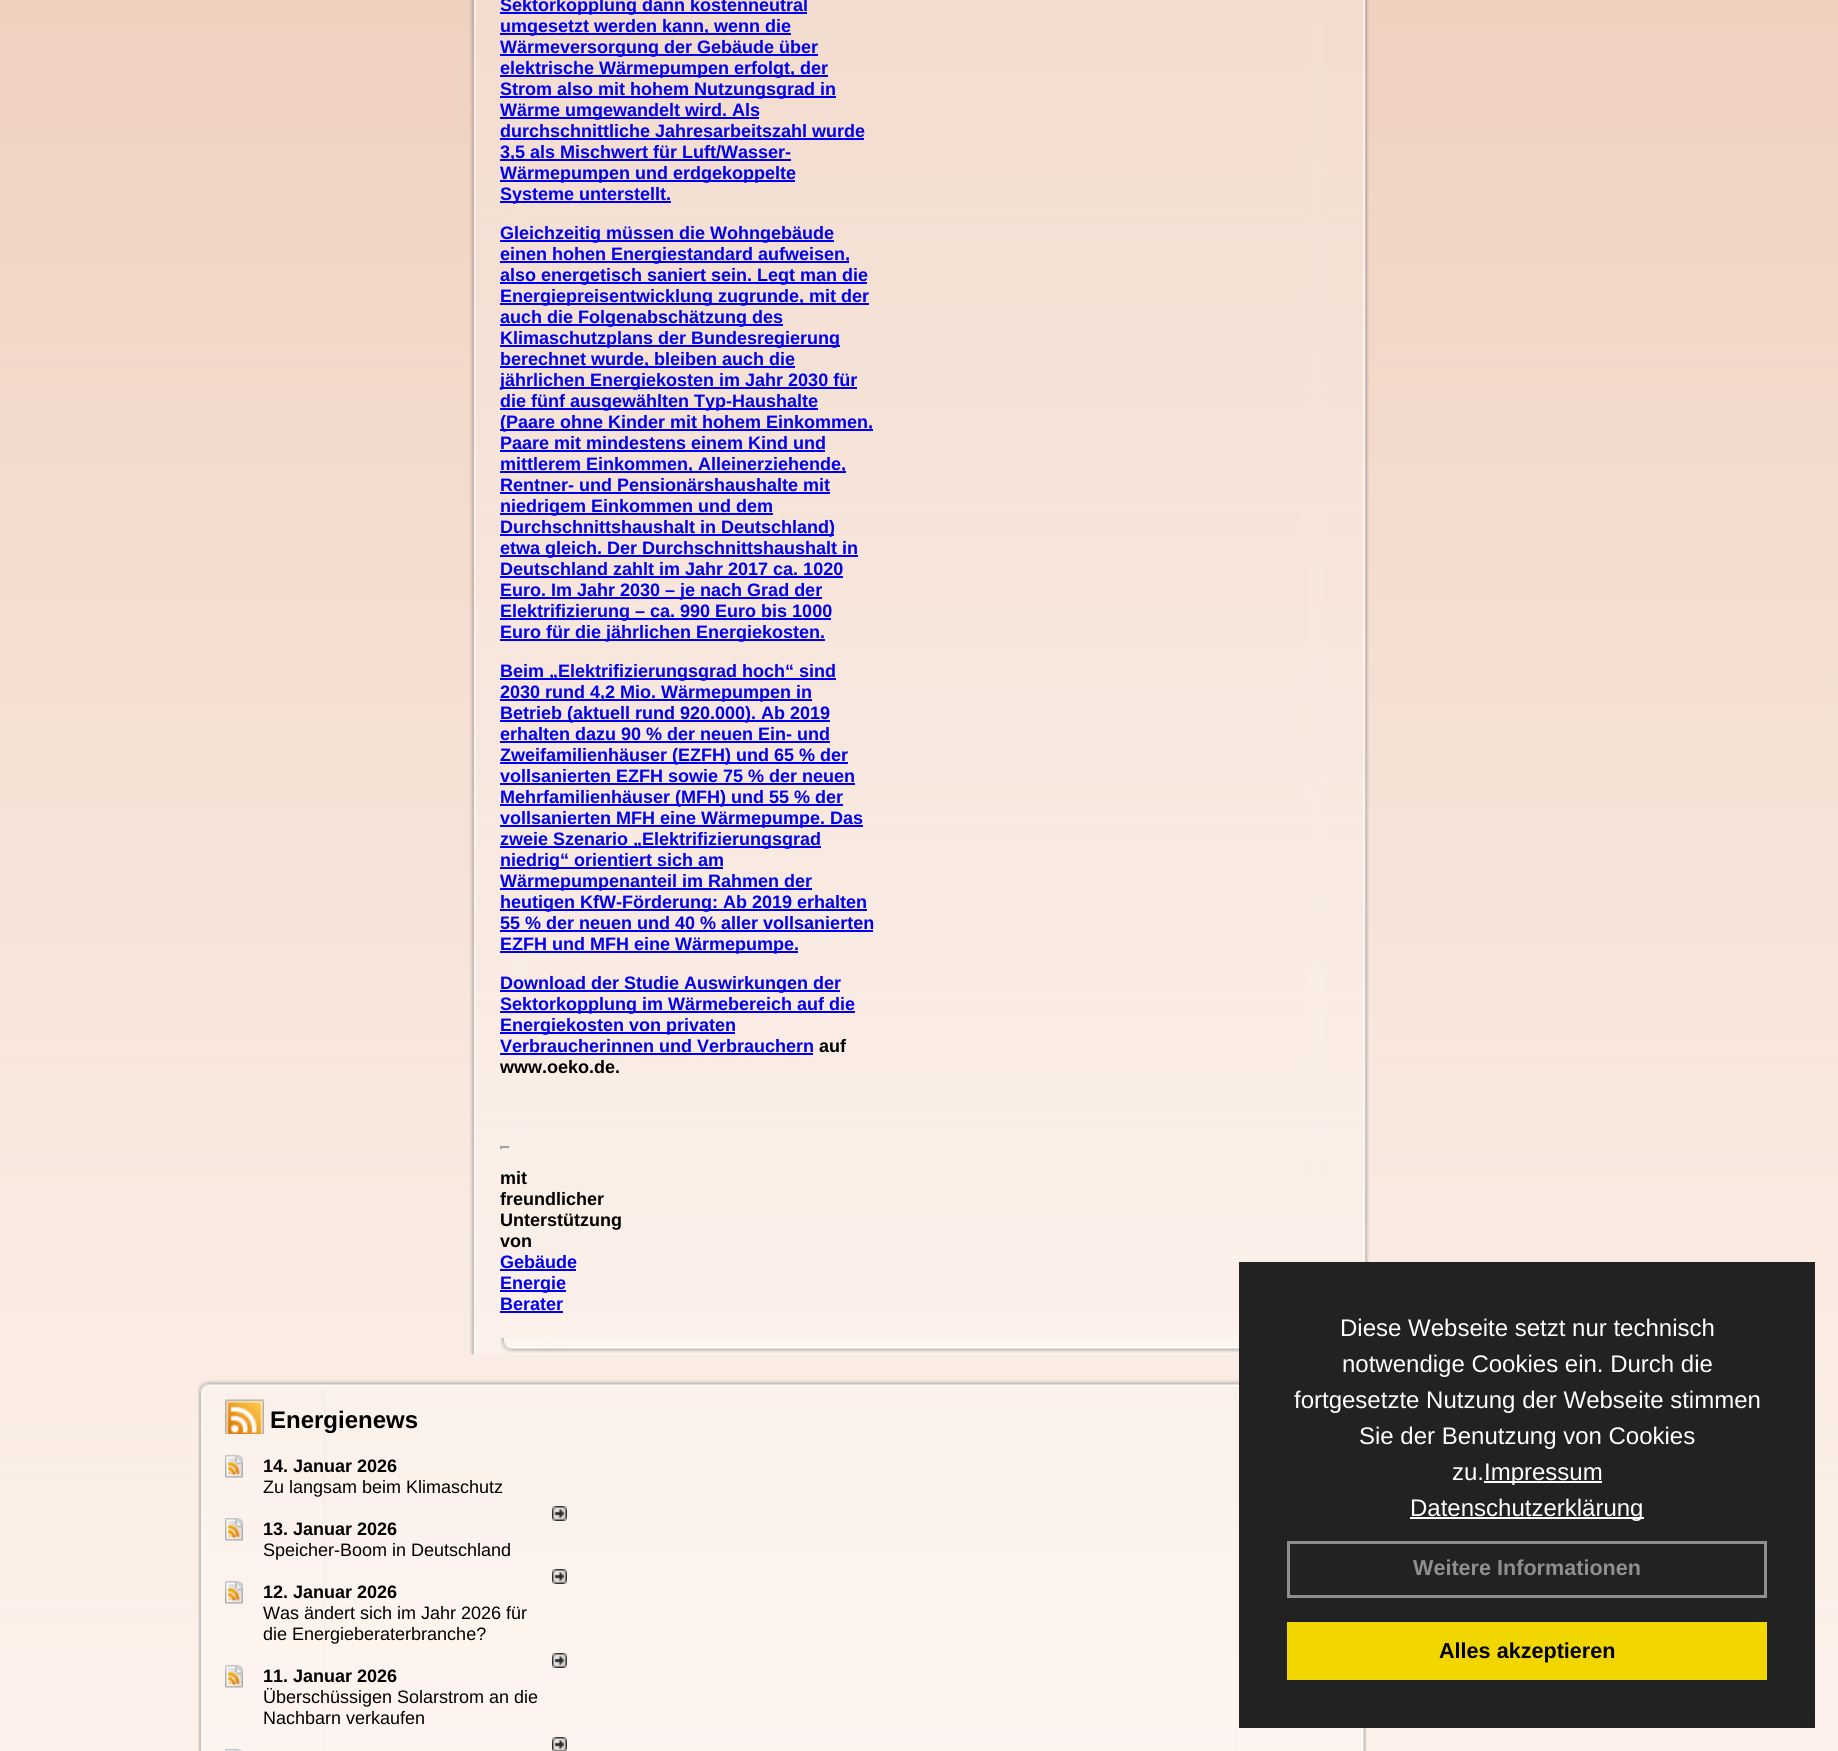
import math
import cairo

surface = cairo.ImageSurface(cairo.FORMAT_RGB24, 1838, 1751)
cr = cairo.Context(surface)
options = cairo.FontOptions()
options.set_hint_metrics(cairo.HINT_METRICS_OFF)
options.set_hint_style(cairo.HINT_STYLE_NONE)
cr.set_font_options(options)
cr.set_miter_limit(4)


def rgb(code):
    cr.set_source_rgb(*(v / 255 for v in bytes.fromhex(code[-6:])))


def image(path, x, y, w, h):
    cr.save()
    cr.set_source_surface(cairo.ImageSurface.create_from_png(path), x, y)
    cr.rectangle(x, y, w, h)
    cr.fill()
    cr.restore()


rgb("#ffffff")
cr.paint()
image("img/1.png", 0, 0, 1838, 1751)
image("img/2.png", 470, 0, 899, 1355)
for x, y, w, h, color in [
    (500, 12, 307, 2, "#0000ee"),
    (500, 33, 291, 2, "#0000ee"),
    (500, 54, 318, 2, "#0000ee"),
    (500, 75, 328, 2, "#0000ee"),
    (500, 96, 336, 2, "#0000ee"),
    (500, 117, 259, 2, "#0000ee"),
    (500, 138, 364, 2, "#0000ee"),
    (500, 159, 291, 2, "#0000ee"),
    (500, 180, 295, 2, "#0000ee"),
    (500, 201, 171, 2, "#0000ee"),
    (500, 240, 334, 2, "#0000ee"),
    (500, 261, 349, 2, "#0000ee"),
    (500, 282, 367, 2, "#0000ee"),
    (500, 303, 369, 2, "#0000ee"),
    (500, 324, 283, 2, "#0000ee"),
    (500, 345, 340, 2, "#0000ee"),
    (500, 366, 295, 2, "#0000ee"),
    (500, 387, 357, 2, "#0000ee"),
    (500, 408, 318, 2, "#0000ee"),
    (500, 429, 373, 2, "#0000ee"),
    (500, 450, 325, 2, "#0000ee"),
    (500, 471, 346, 2, "#0000ee"),
    (500, 492, 330, 2, "#0000ee"),
    (500, 513, 273, 2, "#0000ee"),
    (500, 534, 334, 2, "#0000ee"),
    (500, 555, 358, 2, "#0000ee"),
    (500, 576, 343, 2, "#0000ee"),
    (500, 597, 322, 2, "#0000ee"),
    (500, 618, 331, 2, "#0000ee"),
    (500, 639, 325, 2, "#0000ee"),
    (500, 678, 336, 2, "#0000ee"),
    (500, 699, 312, 2, "#0000ee"),
    (500, 720, 330, 2, "#0000ee"),
    (500, 741, 330, 2, "#0000ee"),
    (500, 762, 348, 2, "#0000ee"),
    (500, 783, 355, 2, "#0000ee"),
    (500, 804, 343, 2, "#0000ee"),
    (500, 825, 363, 2, "#0000ee"),
    (500, 846, 321, 2, "#0000ee"),
    (500, 867, 223, 2, "#0000ee"),
    (500, 888, 312, 2, "#0000ee"),
    (500, 909, 367, 2, "#0000ee"),
    (500, 930, 373, 2, "#0000ee"),
    (500, 951, 298, 2, "#0000ee"),
    (500, 990, 340, 2, "#0000ee"),
    (500, 1011, 355, 2, "#0000ee"),
    (500, 1032, 235, 2, "#0000ee"),
    (500, 1053, 313, 2, "#0000ee"),
    (500, 1146, 10, 2, "#9f9f9f"),
    (509, 1146, 2, 3, "#eeeeee"),
    (500, 1148, 10, 2, "#eeeeee"),
    (500, 1146, 2, 3, "#9f9f9f"),
    (500, 1269, 76, 2, "#0000ee"),
    (500, 1290, 66, 2, "#0000ee"),
    (500, 1311, 63, 2, "#0000ee"),
]:
    rgb(color)
    cr.rectangle(x, y, w, h)
    cr.fill()
image("img/3.png", 500, 1338, 739, 15)
image("img/4.png", 198, 1380, 1041, 20)
image("img/5.png", 198, 1399, 1169, 352)
image("img/6.png", 225, 1399, 39, 35)
image("img/7.png", 225, 1455, 18, 23)
image("img/8.png", 552, 1506, 15, 15)
image("img/9.png", 225, 1518, 18, 23)
image("img/10.png", 552, 1569, 15, 15)
image("img/11.png", 225, 1581, 18, 23)
image("img/12.png", 552, 1653, 15, 15)
image("img/13.png", 225, 1665, 18, 23)
image("img/14.png", 552, 1737, 15, 14)
image("img/15.png", 225, 1749, 18, 2)
for x, y, w, h, color in [
    (1239, 1262, 576, 466, "#222222"),
    (1484, 1481, 118, 2, "#ffffff"),
    (1410, 1517, 234, 2, "#ffffff"),
]:
    rgb(color)
    cr.rectangle(x, y, w, h)
    cr.fill()
cr.rectangle(1288.5, 1542.5, 477, 54)
rgb("#8f8f8f")
cr.set_line_width(3)
cr.stroke()
rgb("#f1d600")
cr.rectangle(1287, 1622, 480, 58)
cr.fill()
cr.select_font_face("Liberation Sans", cairo.FONT_SLANT_NORMAL, cairo.FONT_WEIGHT_BOLD)
cr.set_font_size(18)
rgb("#0000ee")
for x, y, s in [
    (500, 11, "Sektorkopplung dann kostenneutral"),
    (500, 32, "umgesetzt werden kann, wenn die"),
    (500, 53, "Wärmeversorgung der Gebäude über"),
    (500, 74, "elektrische Wärmepumpen erfolgt, der"),
    (500, 95, "Strom also mit hohem Nutzungsgrad in"),
    (500, 116, "Wärme umgewandelt wird. Als"),
    (500, 137, "durchschnittliche Jahresarbeitszahl wurde"),
    (500, 158, "3,5 als Mischwert für Luft/Wasser-"),
    (500, 179, "Wärmepumpen und erdgekoppelte"),
    (500, 200, "Systeme unterstellt."),
    (500, 239, "Gleichzeitig müssen die Wohngebäude"),
    (500, 260, "einen hohen Energiestandard aufweisen,"),
    (500, 281, "also energetisch saniert sein. Legt man die"),
    (500, 302, "Energiepreisentwicklung zugrunde, mit der"),
    (500, 323, "auch die Folgenabschätzung des"),
    (500, 344, "Klimaschutzplans der Bundesregierung"),
    (500, 365, "berechnet wurde, bleiben auch die"),
    (500, 386, "jährlichen Energiekosten im Jahr 2030 für"),
    (500, 407, "die fünf ausgewählten Typ-Haushalte"),
    (500, 428, "(Paare ohne Kinder mit hohem Einkommen,"),
    (500, 449, "Paare mit mindestens einem Kind und"),
    (500, 470, "mittlerem Einkommen, Alleinerziehende,"),
    (500, 491, "Rentner- und Pensionärshaushalte mit"),
    (500, 512, "niedrigem Einkommen und dem"),
    (500, 533, "Durchschnittshaushalt in Deutschland)"),
    (500, 554, "etwa gleich. Der Durchschnittshaushalt in"),
    (500, 575, "Deutschland zahlt im Jahr 2017 ca. 1020"),
    (500, 596, "Euro. Im Jahr 2030 – je nach Grad der"),
    (500, 617, "Elektrifizierung – ca. 990 Euro bis 1000"),
    (500, 638, "Euro für die jährlichen Energiekosten."),
    (500, 677, "Beim „Elektrifizierungsgrad hoch“ sind"),
    (500, 698, "2030 rund 4,2 Mio. Wärmepumpen in"),
    (500, 719, "Betrieb (aktuell rund 920.000). Ab 2019"),
    (500, 740, "erhalten dazu 90 % der neuen Ein- und"),
    (500, 761, "Zweifamilienhäuser (EZFH) und 65 % der"),
    (500, 782, "vollsanierten EZFH sowie 75 % der neuen"),
    (500, 803, "Mehrfamilienhäuser (MFH) und 55 % der"),
    (500, 824, "vollsanierten MFH eine Wärmepumpe. Das"),
    (500, 845, "zweie Szenario „Elektrifizierungsgrad"),
    (500, 866, "niedrig“ orientiert sich am"),
    (500, 887, "Wärmepumpenanteil im Rahmen der"),
    (500, 908, "heutigen KfW-Förderung: Ab 2019 erhalten"),
    (500, 929, "55 % der neuen und 40 % aller vollsanierten"),
    (500, 950, "EZFH und MFH eine Wärmepumpe."),
    (500, 989, "Download der Studie Auswirkungen der"),
    (500, 1010, "Sektorkopplung im Wärmebereich auf die"),
    (500, 1031, "Energiekosten von privaten"),
    (500, 1052, "Verbraucherinnen und Verbrauchern"),
]:
    cr.move_to(x, y)
    cr.show_text(s)
rgb("#000000")
for x, y, s in [
    (819, 1052, "auf"),
    (500, 1073, "www.oeko.de."),
    (500, 1184, "mit"),
    (500, 1205, "freundlicher"),
    (500, 1226, "Unterstützung"),
    (500, 1247, "von"),
]:
    cr.move_to(x, y)
    cr.show_text(s)
rgb("#0000ee")
for x, y, s in [
    (500, 1268, "Gebäude"),
    (500, 1289, "Energie"),
    (500, 1310, "Berater"),
]:
    cr.move_to(x, y)
    cr.show_text(s)
cr.set_font_size(24)
rgb("#000000")
cr.move_to(270, 1428)
cr.show_text("Energienews")
cr.set_font_size(18)
cr.move_to(263, 1472)
cr.show_text("14. Januar 2026")
cr.select_font_face("Liberation Sans")
cr.move_to(263, 1493)
cr.show_text("Zu langsam beim Klimaschutz")
cr.select_font_face("Liberation Sans", cairo.FONT_SLANT_NORMAL, cairo.FONT_WEIGHT_BOLD)
cr.move_to(263, 1535)
cr.show_text("13. Januar 2026")
cr.select_font_face("Liberation Sans")
cr.move_to(263, 1556)
cr.show_text("Speicher-Boom in Deutschland")
cr.select_font_face("Liberation Sans", cairo.FONT_SLANT_NORMAL, cairo.FONT_WEIGHT_BOLD)
cr.move_to(263, 1598)
cr.show_text("12. Januar 2026")
cr.select_font_face("Liberation Sans")
cr.move_to(263, 1619)
cr.show_text("Was ändert sich im Jahr 2026 für")
cr.move_to(263, 1640)
cr.show_text("die Energieberaterbranche?")
cr.select_font_face("Liberation Sans", cairo.FONT_SLANT_NORMAL, cairo.FONT_WEIGHT_BOLD)
cr.move_to(263, 1682)
cr.show_text("11. Januar 2026")
cr.select_font_face("Liberation Sans")
cr.move_to(263, 1703)
cr.show_text("Überschüssigen Solarstrom an die")
cr.move_to(263, 1724)
cr.show_text("Nachbarn verkaufen")
cr.set_font_size(24)
rgb("#ffffff")
for x, y, s in [
    (1340, 1336, "Diese Webseite setzt nur technisch"),
    (1342, 1372, "notwendige Cookies ein. Durch die"),
    (1294, 1408, "fortgesetzte Nutzung der Webseite stimmen"),
    (1359, 1444, "Sie der Benutzung von Cookies"),
    (1452, 1480, "zu."),
    (1484, 1480, "Impressum"),
    (1410, 1516, "Datenschutzerklärung"),
]:
    cr.move_to(x, y)
    cr.show_text(s)
cr.select_font_face("Liberation Sans", cairo.FONT_SLANT_NORMAL, cairo.FONT_WEIGHT_BOLD)
cr.set_font_size(21.6)
rgb("#8f8f8f")
cr.move_to(1413, 1575)
cr.show_text("Weitere Informationen")
rgb("#000000")
cr.move_to(1439, 1658)
cr.show_text("Alles akzeptieren")
surface.write_to_png("page.png")
